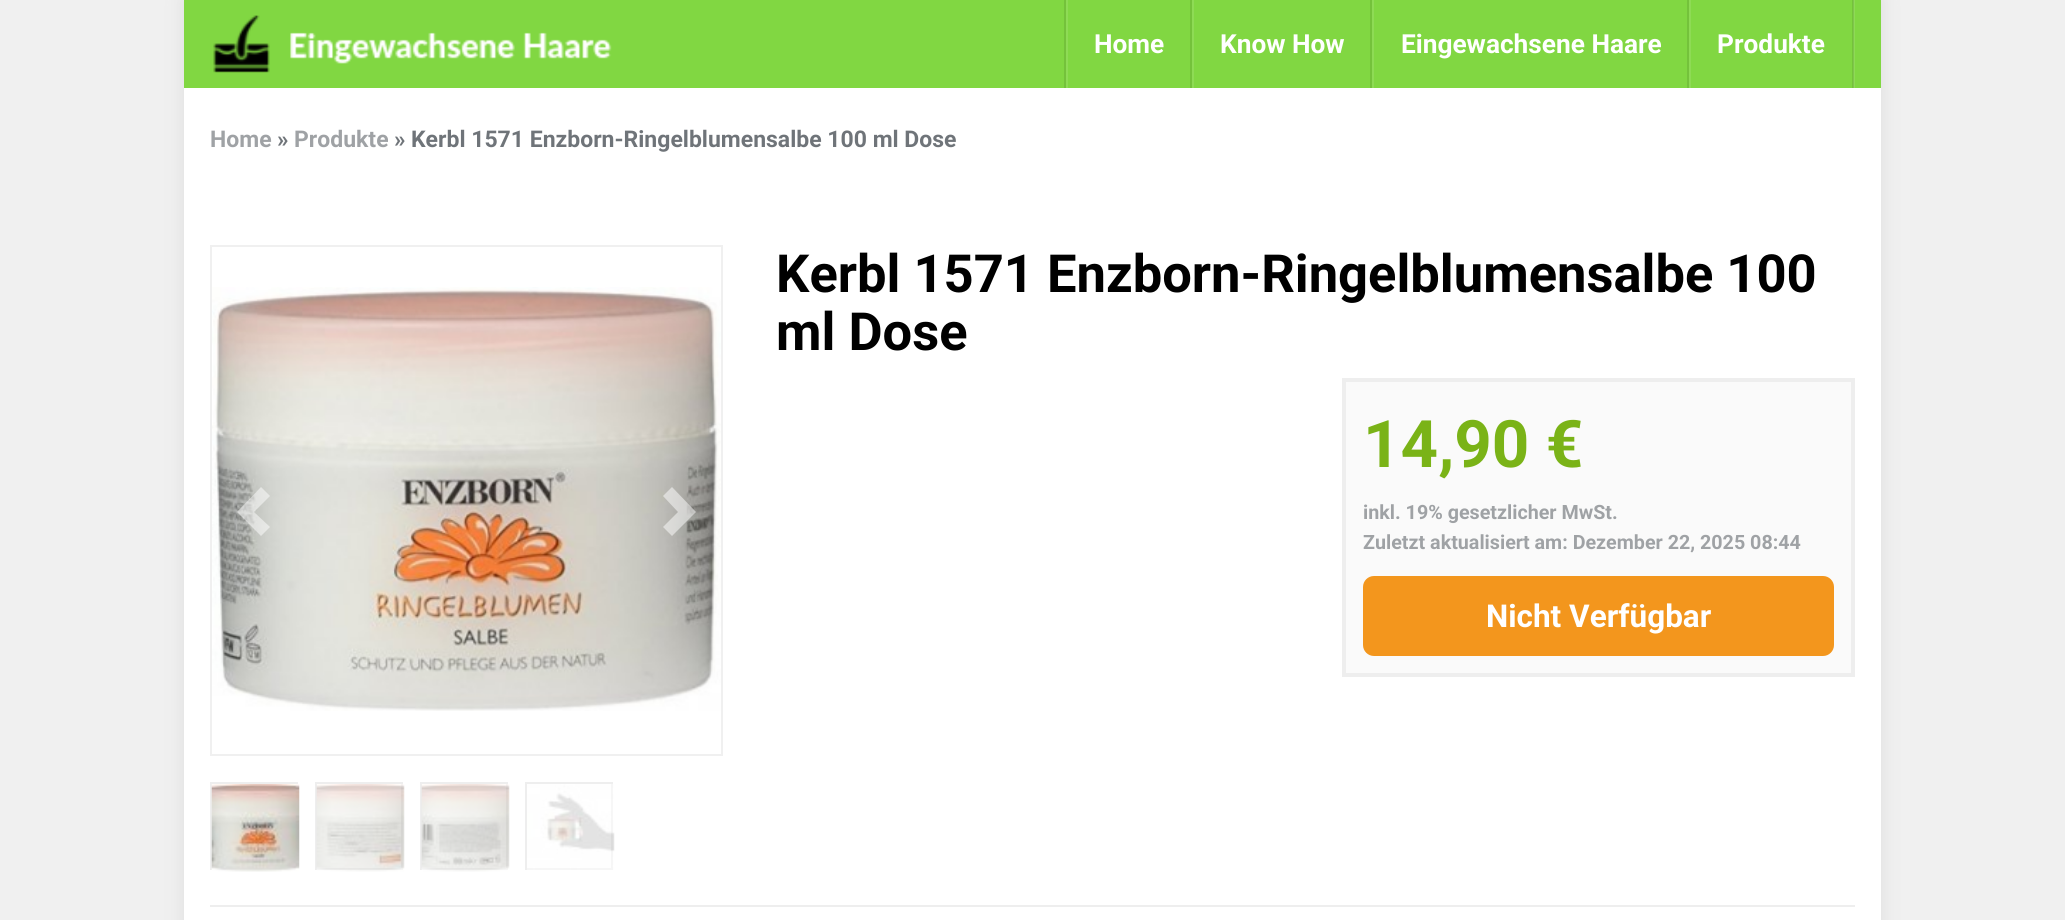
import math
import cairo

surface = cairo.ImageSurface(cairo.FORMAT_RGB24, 2065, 920)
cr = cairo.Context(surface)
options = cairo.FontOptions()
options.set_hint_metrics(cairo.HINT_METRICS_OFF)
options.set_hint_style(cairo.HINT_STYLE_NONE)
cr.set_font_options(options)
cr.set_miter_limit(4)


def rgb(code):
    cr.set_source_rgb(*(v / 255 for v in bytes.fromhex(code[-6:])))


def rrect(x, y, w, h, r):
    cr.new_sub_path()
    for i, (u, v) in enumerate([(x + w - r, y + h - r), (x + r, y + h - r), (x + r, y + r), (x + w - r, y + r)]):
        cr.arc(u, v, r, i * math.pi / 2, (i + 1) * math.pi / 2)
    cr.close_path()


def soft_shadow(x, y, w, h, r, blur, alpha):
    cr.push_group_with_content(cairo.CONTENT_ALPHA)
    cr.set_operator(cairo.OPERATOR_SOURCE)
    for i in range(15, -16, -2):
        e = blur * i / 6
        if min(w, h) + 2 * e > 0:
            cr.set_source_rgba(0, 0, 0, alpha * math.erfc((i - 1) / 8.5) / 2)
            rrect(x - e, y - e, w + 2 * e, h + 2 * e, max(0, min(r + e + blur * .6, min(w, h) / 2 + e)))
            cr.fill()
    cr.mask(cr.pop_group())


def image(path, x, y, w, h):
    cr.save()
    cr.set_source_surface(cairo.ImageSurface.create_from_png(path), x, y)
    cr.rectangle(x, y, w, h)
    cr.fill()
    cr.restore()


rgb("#f0f0f0")
cr.paint()
rgb("#dddddd")
soft_shadow(184, 0, 1697, 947, 0, 9, 1)
for x, y, w, h, color in [
    (184, 88, 1697, 832, "#ffffff"),
    (184, 0, 1697, 88, "#81d742"),
    (1852, 0, 1, 88, "#74c23b"),
]:
    rgb(color)
    cr.rectangle(x, y, w, h)
    cr.fill()
image("img/1.png", 213, 15, 399, 58)
for x, y, w, h, color in [
    (1854, 0, 1, 88, "#8edb55"),
    (1853, 0, 1, 88, "#80c54d"),
    (1064, 0, 2, 88, "#74c23b"),
    (1190, 0, 2, 88, "#74c23b"),
    (1066, 0, 2, 88, "#8edb55"),
    (1370, 0, 2, 88, "#74c23b"),
    (1192, 0, 2, 88, "#8edb55"),
    (1687, 0, 2, 88, "#74c23b"),
    (1372, 0, 2, 88, "#8edb55"),
    (1689, 0, 2, 88, "#8edb55"),
]:
    rgb(color)
    cr.rectangle(x, y, w, h)
    cr.fill()
cr.rectangle(211, 246, 511, 509)
rgb("#f0f0f0")
cr.stroke()
image("img/2.png", 212, 287, 509, 424)
cr.set_source_rgba(1, 1, 1, 0.5)
cr.new_path()
cr.move_to(270, 496)
cr.line_to(254, 512)
cr.line_to(270, 527)
cr.line_to(261, 536)
cr.line_to(237, 512)
cr.line_to(261, 487)
cr.close_path()
cr.fill()
cr.new_path()
cr.move_to(696, 512)
cr.line_to(672, 536)
cr.line_to(663, 527)
cr.line_to(678, 512)
cr.line_to(663, 496)
cr.line_to(672, 487)
cr.close_path()
cr.fill()
cr.rectangle(211, 783, 86, 86)
rgb("#eeeeee")
cr.stroke()
image("img/3.png", 211, 784, 89, 88)
cr.rectangle(316, 783, 86, 86)
cr.stroke()
image("img/4.png", 316, 784, 89, 88)
cr.rectangle(421, 783, 86, 86)
cr.stroke()
image("img/5.png", 421, 784, 89, 88)
cr.rectangle(526, 783, 86, 86)
cr.stroke()
image("img/6.png", 527, 784, 88, 86)
rgb("#fafafa")
cr.rectangle(1344, 380, 509, 295)
cr.fill_preserve()
rgb("#eeeeee")
cr.set_line_width(4)
cr.stroke()
rgb("#f3961d")
rrect(1364, 577, 469, 78, 10)
cr.fill_preserve()
cr.set_line_width(2)
cr.stroke()
rgb("#eeeeee")
cr.rectangle(210, 905, 1645, 2)
cr.fill()
cr.select_font_face("Roboto", cairo.FONT_SLANT_NORMAL, cairo.FONT_WEIGHT_BOLD)
cr.set_font_size(26.25)
rgb("#ffffff")
for x, y, s in [
    (1094, 53, "Home"),
    (1220, 53, "Know How"),
    (1401, 53, "Eingewachsene Haare"),
    (1717, 53, "Produkte"),
]:
    cr.move_to(x, y)
    cr.show_text(s)
cr.set_font_size(23)
rgb("#9fa2a5")
cr.move_to(210, 147)
cr.show_text("Home")
rgb("#6f7479")
cr.move_to(277, 147)
cr.show_text("»")
rgb("#9fa2a5")
cr.move_to(294, 147)
cr.show_text("Produkte")
rgb("#6f7479")
cr.move_to(394, 147)
cr.show_text("»")
cr.move_to(411, 147)
cr.show_text("Kerbl 1571 Enzborn-Ringelblumensalbe 100 ml Dose")
cr.set_font_size(52.5)
rgb("#000000")
cr.move_to(776, 292)
cr.show_text("Kerbl 1571 Enzborn-Ringelblumensalbe 100")
cr.move_to(776, 350)
cr.show_text("ml Dose")
cr.set_font_size(65.5)
rgb("#7ab317")
cr.move_to(1363, 467)
cr.show_text("14,90 €")
cr.set_font_size(19.7)
rgb("#9fa2a5")
cr.move_to(1363, 519)
cr.show_text("inkl. 19% gesetzlicher MwSt.")
cr.move_to(1363, 549)
cr.show_text("Zuletzt aktualisiert am: Dezember 22, 2025 08:44")
cr.set_font_size(31.5)
rgb("#ffffff")
cr.move_to(1486, 627)
cr.show_text("Nicht Verfügbar")
surface.write_to_png("page.png")
